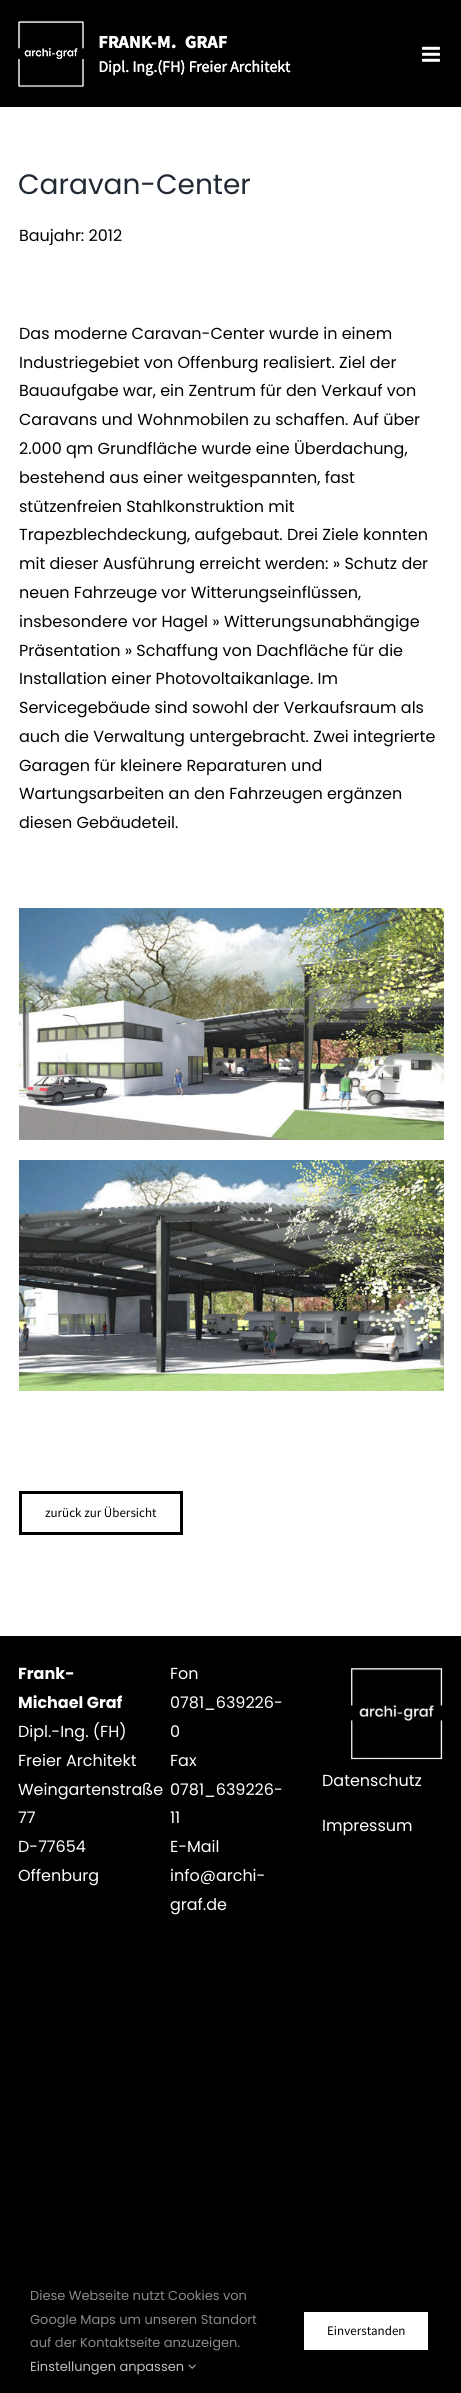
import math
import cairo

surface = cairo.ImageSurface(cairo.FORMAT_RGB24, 461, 2393)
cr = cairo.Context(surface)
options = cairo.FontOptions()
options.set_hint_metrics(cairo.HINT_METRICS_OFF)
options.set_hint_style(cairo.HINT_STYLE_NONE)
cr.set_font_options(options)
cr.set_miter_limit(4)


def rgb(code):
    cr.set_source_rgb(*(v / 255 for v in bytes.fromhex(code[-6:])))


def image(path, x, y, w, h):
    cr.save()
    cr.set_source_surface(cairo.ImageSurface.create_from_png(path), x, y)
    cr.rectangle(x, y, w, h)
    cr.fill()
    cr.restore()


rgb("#000000")
cr.paint()
rgb("#ffffff")
cr.rectangle(0, 107, 461, 1529)
cr.fill()
image("img/1.png", 18, 20, 273, 68)
image("img/2.png", 422, 46, 18, 16)
image("img/3.png", 19, 908, 425, 232)
image("img/4.png", 19, 1160, 425, 231)
cr.rectangle(20.5, 1492.5, 161, 41)
rgb("#000000")
cr.set_line_width(3)
cr.stroke()
image("img/5.png", 351, 1668, 92, 92)
image("img/6.png", 188, 2364, 8, 5)
rgb("#ffffff")
cr.rectangle(304, 2312, 124, 38)
cr.fill()
cr.select_font_face("Poppins")
cr.set_font_size(28)
rgb("#212934")
cr.move_to(18, 194)
cr.show_text("Caravan-Center")
cr.set_font_size(16)
rgb("#000000")
for x, y, s in [
    (19, 241, "Baujahr: 2012"),
    (19, 339, "Das moderne Caravan-Center wurde in einem"),
    (19, 368, "Industriegebiet von Offenburg realisiert. Ziel der"),
    (19, 396, "Bauaufgabe war, ein Zentrum für den Verkauf von"),
    (19, 425, "Caravans und Wohnmobilen zu schaffen. Auf über"),
    (19, 454, "2.000 qm Grundfläche wurde eine Überdachung,"),
    (19, 483, "bestehend aus einer weitgespannten, fast"),
    (19, 512, "stützenfreien Stahlkonstruktion mit"),
    (19, 540, "Trapezblechdeckung, aufgebaut. Drei Ziele konnten"),
    (19, 569, "mit dieser Ausführung erreicht werden: » Schutz der"),
    (19, 598, "neuen Fahrzeuge vor Witterungseinflüssen,"),
    (19, 627, "insbesondere vor Hagel » Witterungsunabhängige"),
    (19, 656, "Präsentation » Schaffung von Dachfläche für die"),
    (19, 684, "Installation einer Photovoltaikanlage. Im"),
    (19, 713, "Servicegebäude sind sowohl der Verkaufsraum als"),
    (19, 742, "auch die Verwaltung untergebracht. Zwei integrierte"),
    (19, 771, "Garagen für kleinere Reparaturen und"),
    (19, 799, "Wartungsarbeiten an den Fahrzeugen ergänzen"),
    (19, 828, "diesen Gebäudeteil."),
]:
    cr.move_to(x, y)
    cr.show_text(s)
cr.select_font_face("Source Sans Pro")
cr.set_font_size(13)
cr.move_to(45, 1517)
cr.show_text("zurück zur Übersicht")
cr.select_font_face("Poppins", cairo.FONT_SLANT_NORMAL, cairo.FONT_WEIGHT_BOLD)
cr.set_font_size(16)
rgb("#ffffff")
cr.move_to(18, 1679)
cr.show_text("Frank-")
cr.move_to(18, 1708)
cr.show_text("Michael Graf")
cr.select_font_face("Poppins")
for x, y, s in [
    (18, 1737, "Dipl.-Ing. (FH)"),
    (18, 1766, "Freier Architekt"),
    (18, 1795, "Weingartenstraße"),
    (18, 1823, "77"),
    (18, 1852, "D-77654"),
    (18, 1881, "Offenburg"),
    (170, 1679, "Fon"),
    (170, 1708, "0781_639226-"),
    (170, 1737, "0"),
    (170, 1766, "Fax"),
    (170, 1795, "0781_639226-"),
    (170, 1823, "11"),
    (170, 1852, "E-Mail"),
    (170, 1881, "info@archi-"),
    (170, 1910, "graf.de"),
    (322, 1786, "Datenschutz"),
    (322, 1831, "Impressum"),
]:
    cr.move_to(x, y)
    cr.show_text(s)
cr.set_font_size(13)
rgb("#8c8989")
for x, y, s in [
    (30, 2300, "Diese Webseite nutzt Cookies von"),
    (30, 2324, "Google Maps um unseren Standort"),
    (30, 2347, "auf der Kontaktseite anzuzeigen."),
]:
    cr.move_to(x, y)
    cr.show_text(s)
rgb("#bfbfbf")
cr.move_to(30, 2371)
cr.show_text("Einstellungen anpassen")
cr.select_font_face("Source Sans Pro")
rgb("#000000")
cr.move_to(327, 2335)
cr.show_text("Einverstanden")
surface.write_to_png("page.png")
